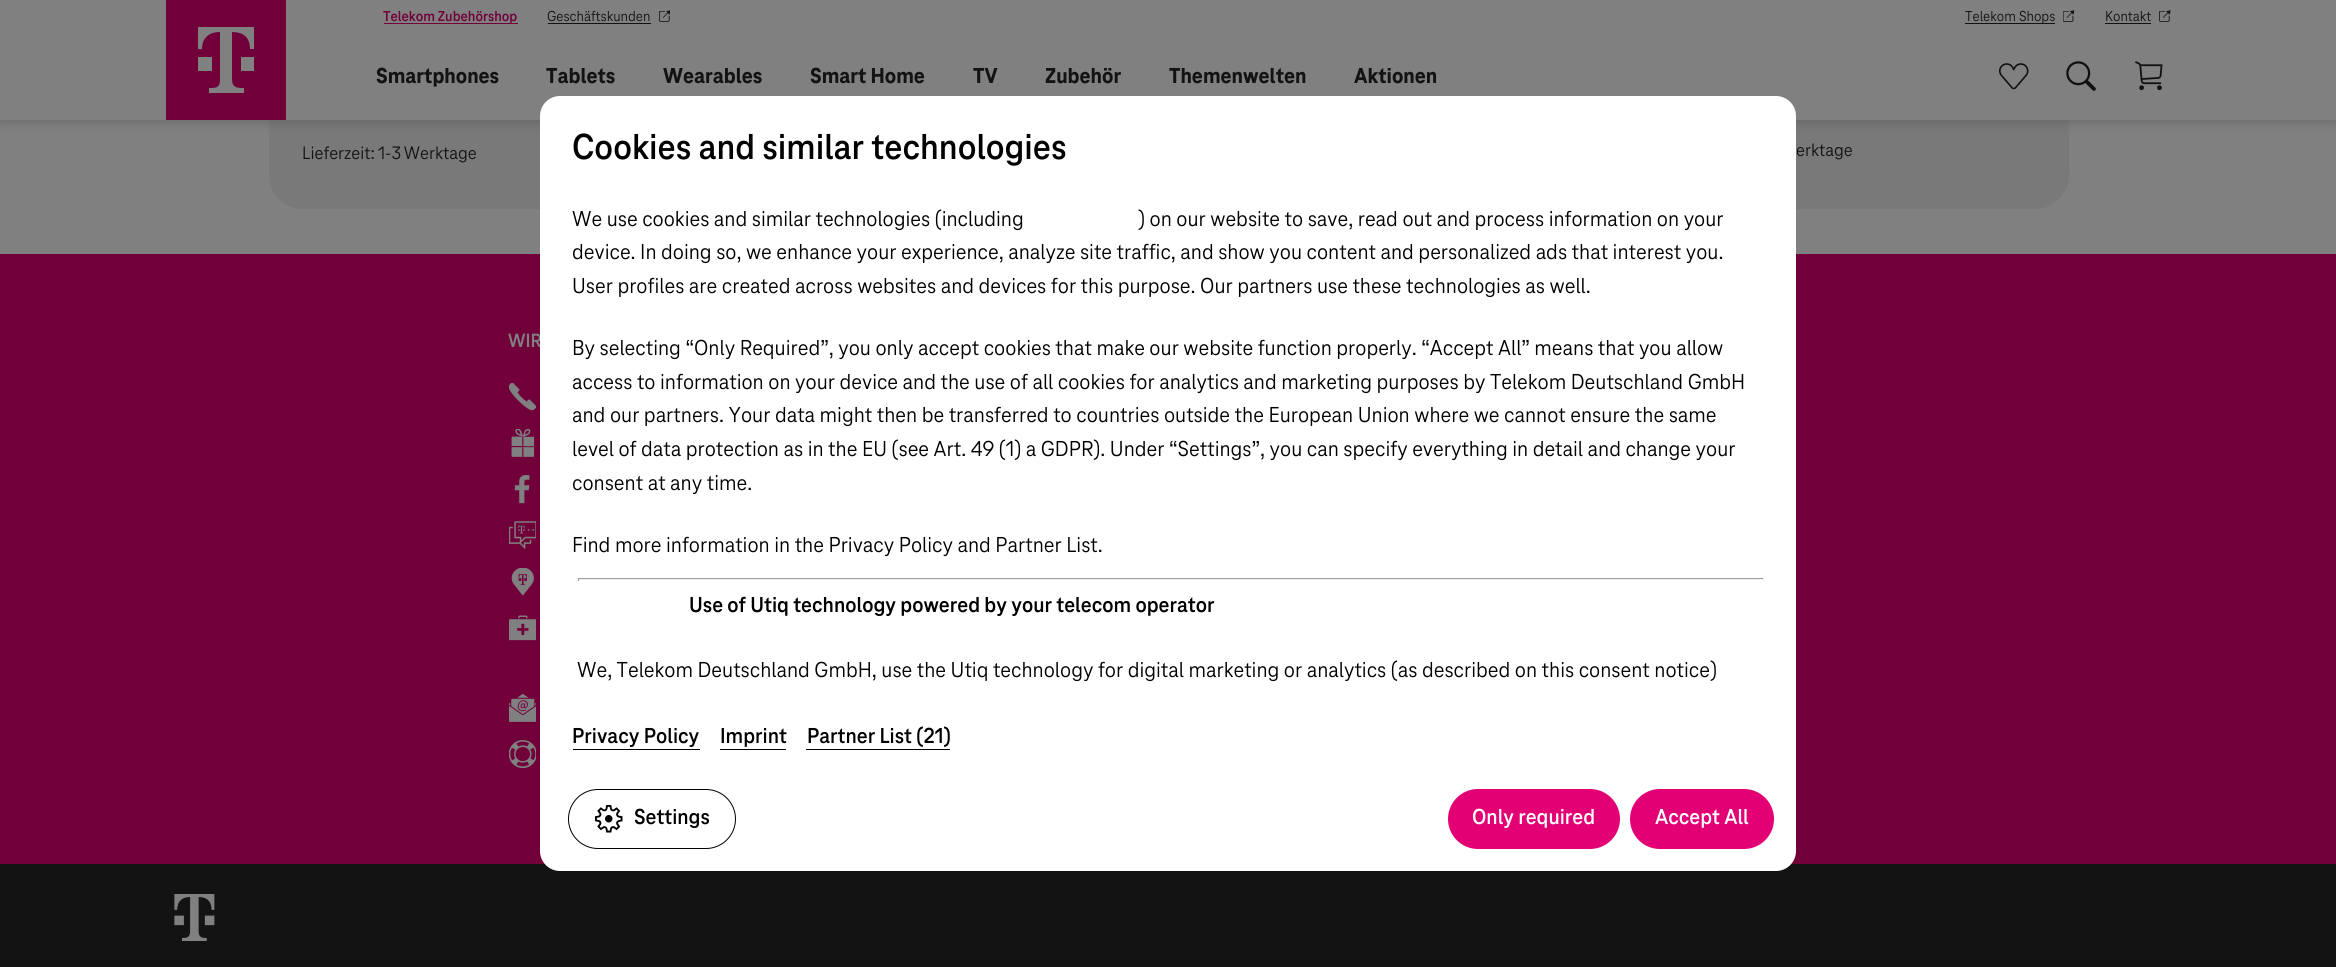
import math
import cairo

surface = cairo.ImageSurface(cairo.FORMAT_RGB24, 2336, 967)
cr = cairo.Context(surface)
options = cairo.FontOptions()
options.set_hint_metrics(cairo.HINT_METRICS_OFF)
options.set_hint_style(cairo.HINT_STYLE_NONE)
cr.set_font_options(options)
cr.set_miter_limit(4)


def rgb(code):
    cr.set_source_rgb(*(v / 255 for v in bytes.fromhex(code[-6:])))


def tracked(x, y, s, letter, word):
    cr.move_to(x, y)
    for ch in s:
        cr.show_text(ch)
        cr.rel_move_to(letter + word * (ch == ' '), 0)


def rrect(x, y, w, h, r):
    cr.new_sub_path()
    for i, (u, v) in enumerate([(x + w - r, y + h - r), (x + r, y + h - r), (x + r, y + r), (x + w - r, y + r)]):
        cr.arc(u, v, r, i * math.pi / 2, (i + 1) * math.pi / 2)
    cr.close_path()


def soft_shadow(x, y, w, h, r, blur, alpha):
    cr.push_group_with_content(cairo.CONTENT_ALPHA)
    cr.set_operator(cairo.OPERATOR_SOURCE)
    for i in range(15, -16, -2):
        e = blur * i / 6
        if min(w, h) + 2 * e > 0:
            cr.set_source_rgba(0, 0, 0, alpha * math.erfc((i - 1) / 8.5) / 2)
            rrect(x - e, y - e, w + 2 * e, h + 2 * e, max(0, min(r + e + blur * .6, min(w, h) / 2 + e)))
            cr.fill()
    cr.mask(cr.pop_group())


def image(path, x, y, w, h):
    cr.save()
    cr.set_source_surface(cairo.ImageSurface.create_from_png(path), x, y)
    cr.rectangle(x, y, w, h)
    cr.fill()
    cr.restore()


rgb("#808080")
cr.paint()
rgb("#797979")
rrect(269, -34, 427, 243, 34)
cr.fill()
rrect(1641, -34, 428, 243, 34)
cr.fill()
rgb("#000000")
soft_shadow(0, 3, 2336, 120, 0, 5.5, 0.15)
rgb("#808080")
cr.rectangle(0, 0, 2336, 120)
cr.fill()
rgb("#71003a")
cr.rectangle(166, 0, 120, 120)
cr.fill()
rgb("#808080")
cr.new_path()
cr.move_to(212, 71)
cr.line_to(198, 71)
cr.line_to(198, 57)
cr.line_to(212, 57)
cr.close_path()
cr.move_to(198, 27)
cr.line_to(198, 49)
cr.line_to(202, 49)
cr.curve_to(202, 38, 209, 32, 220, 32)
cr.line_to(220, 79)
cr.curve_to(220, 86, 218, 88, 211, 88)
cr.line_to(209, 88)
cr.line_to(209, 93)
cr.line_to(244, 93)
cr.line_to(244, 88)
cr.line_to(242, 88)
cr.curve_to(235, 88, 232, 86, 232, 79)
cr.line_to(232, 32)
cr.curve_to(244, 32, 250, 38, 250, 49)
cr.line_to(254, 49)
cr.line_to(254, 27)
cr.close_path()
cr.move_to(241, 71)
cr.line_to(254, 71)
cr.line_to(254, 57)
cr.line_to(241, 57)
cr.close_path()
cr.fill()
rgb("#71003a")
cr.rectangle(384, 23, 134, 1)
cr.fill()
rgb("#131313")
cr.rectangle(548, 23, 103, 1)
cr.fill()
image("img/1.png", 659, 10, 11, 12)
cr.rectangle(1965, 23, 90, 1)
cr.fill()
image("img/2.png", 2063, 10, 12, 12)
cr.rectangle(2105, 23, 46, 1)
cr.fill()
image("img/3.png", 2159, 10, 12, 12)
image("img/4.png", 1999, 63, 30, 27)
image("img/5.png", 2066, 61, 30, 30)
image("img/6.png", 2135, 61, 28, 30)
rgb("#71003a")
cr.rectangle(0, 254, 2336, 610)
cr.fill()
image("img/7.png", 509, 383, 27, 28)
image("img/8.png", 511, 429, 24, 28)
image("img/9.png", 514, 475, 16, 29)
image("img/10.png", 509, 521, 27, 29)
image("img/11.png", 511, 568, 23, 28)
image("img/12.png", 509, 615, 27, 26)
image("img/13.png", 509, 694, 27, 28)
image("img/14.png", 509, 740, 27, 29)
rgb("#131313")
cr.rectangle(0, 864, 2336, 103)
cr.fill()
image("img/15.png", 174, 894, 41, 47)
cr.select_font_face("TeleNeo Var", cairo.FONT_SLANT_NORMAL, cairo.FONT_WEIGHT_BOLD)
cr.set_font_size(15)
rgb("#71003a")
cr.move_to(383, 21)
cr.show_text("Telekom Zubehörshop")
cr.select_font_face("TeleNeo Var")
rgb("#131313")
for x, y, s in [
    (547, 21, "Geschäftskunden"),
    (1965, 21, "Telekom Shops"),
    (2105, 21, "Kontakt"),
]:
    cr.move_to(x, y)
    cr.show_text(s)
cr.select_font_face("TeleNeo Var ExtraBold")
cr.set_font_size(22.5)
for x, y, s in [
    (376, 83, "Smartphones"),
    (546, 83, "Tablets"),
    (663, 83, "Wearables"),
    (810, 83, "Smart Home"),
    (973, 83, "TV"),
    (1045, 83, "Zubehör"),
    (1169, 83, "Themenwelten"),
    (1354, 83, "Aktionen"),
]:
    cr.move_to(x, y)
    cr.show_text(s)
cr.select_font_face("TeleNeo Var")
cr.set_font_size(18.75)
cr.move_to(302, 159)
cr.show_text("Lieferzeit:")
tracked(378, 159, "1-3 Werktage", 0, -1)
tracked(1796, 156, "erktage", 0, -1)
cr.select_font_face("TeleNeo Var", cairo.FONT_SLANT_NORMAL, cairo.FONT_WEIGHT_BOLD)
cr.set_font_size(20)
rgb("#808080")
cr.move_to(508, 347)
cr.show_text("WIR")
rgb("#ffffff")
rrect(540, 96, 1256, 775, 20)
cr.fill()
cr.select_font_face("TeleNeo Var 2", cairo.FONT_SLANT_NORMAL, cairo.FONT_WEIGHT_BOLD)
cr.set_font_size(37.5)
rgb("#000000")
cr.move_to(572, 159)
cr.show_text("Cookies and similar technologies")
cr.select_font_face("TeleNeo Var")
cr.set_font_size(22.5)
for x, y, s in [
    (572, 226, "We use cookies and similar technologies (including"),
    (1138, 226, ") on our website to save, read out and process information on your"),
    (572, 259, "device. In doing so, we enhance your experience, analyze site traffic, and show you content and personalized ads that interest you."),
    (572, 293, "User profiles are created across websites and devices for this purpose. Our partners use these technologies as well."),
    (572, 355, "By selecting “Only Required”, you only accept cookies that make our website function properly. “Accept All” means that you allow"),
    (572, 389, "access to information on your device and the use of all cookies for analytics and marketing purposes by Telekom Deutschland GmbH"),
    (572, 422, "and our partners. Your data might then be transferred to countries outside the European Union where we cannot ensure the same"),
    (572, 456, "level of data protection as in the EU (see Art. 49 (1) a GDPR). Under “Settings”, you can specify everything in detail and change your"),
    (572, 490, "consent at any time."),
    (572, 552, "Find more information in the Privacy Policy and Partner List."),
]:
    cr.move_to(x, y)
    cr.show_text(s)
for x, y, w, h, color in [
    (578, 578, 1186, 1, "#9f9f9f"),
    (1763, 578, 1, 3, "#eeeeee"),
    (578, 579, 1186, 1, "#eeeeee"),
    (578, 578, 1, 3, "#9f9f9f"),
]:
    rgb(color)
    cr.rectangle(x, y, w, h)
    cr.fill()
cr.select_font_face("TeleNeo Var", cairo.FONT_SLANT_NORMAL, cairo.FONT_WEIGHT_BOLD)
rgb("#000000")
cr.move_to(689, 612)
cr.show_text("Use of Utiq technology powered by your telecom operator")
cr.select_font_face("TeleNeo Var")
cr.move_to(577, 677)
cr.show_text("We, Telekom Deutschland GmbH, use the Utiq technology for digital marketing or analytics (as described on this consent notice)")
cr.select_font_face("TeleNeo Var 2", cairo.FONT_SLANT_NORMAL, cairo.FONT_WEIGHT_BOLD)
cr.move_to(572, 743)
cr.show_text("Privacy Policy")
cr.rectangle(573, 749, 127, 1)
cr.fill()
cr.move_to(720, 743)
cr.show_text("Imprint")
cr.rectangle(720, 749, 66, 1)
cr.fill()
cr.move_to(807, 743)
cr.show_text("Partner List (21)")
cr.rectangle(806, 749, 144, 1)
cr.fill()
rrect(568.5, 789.5, 167, 59, 29.5)
cr.set_line_width(1)
cr.stroke()
image("img/16.png", 595, 805, 28, 28)
cr.move_to(634, 824)
cr.show_text("Settings")
rgb("#e20074")
rrect(1448, 789, 172, 60, 30)
cr.fill()
rgb("#ffffff")
cr.move_to(1472, 824)
cr.show_text("Only required")
rgb("#e20074")
rrect(1630, 789, 144, 60, 30)
cr.fill()
rgb("#ffffff")
cr.move_to(1655, 824)
cr.show_text("Accept All")
surface.write_to_png("page.png")
